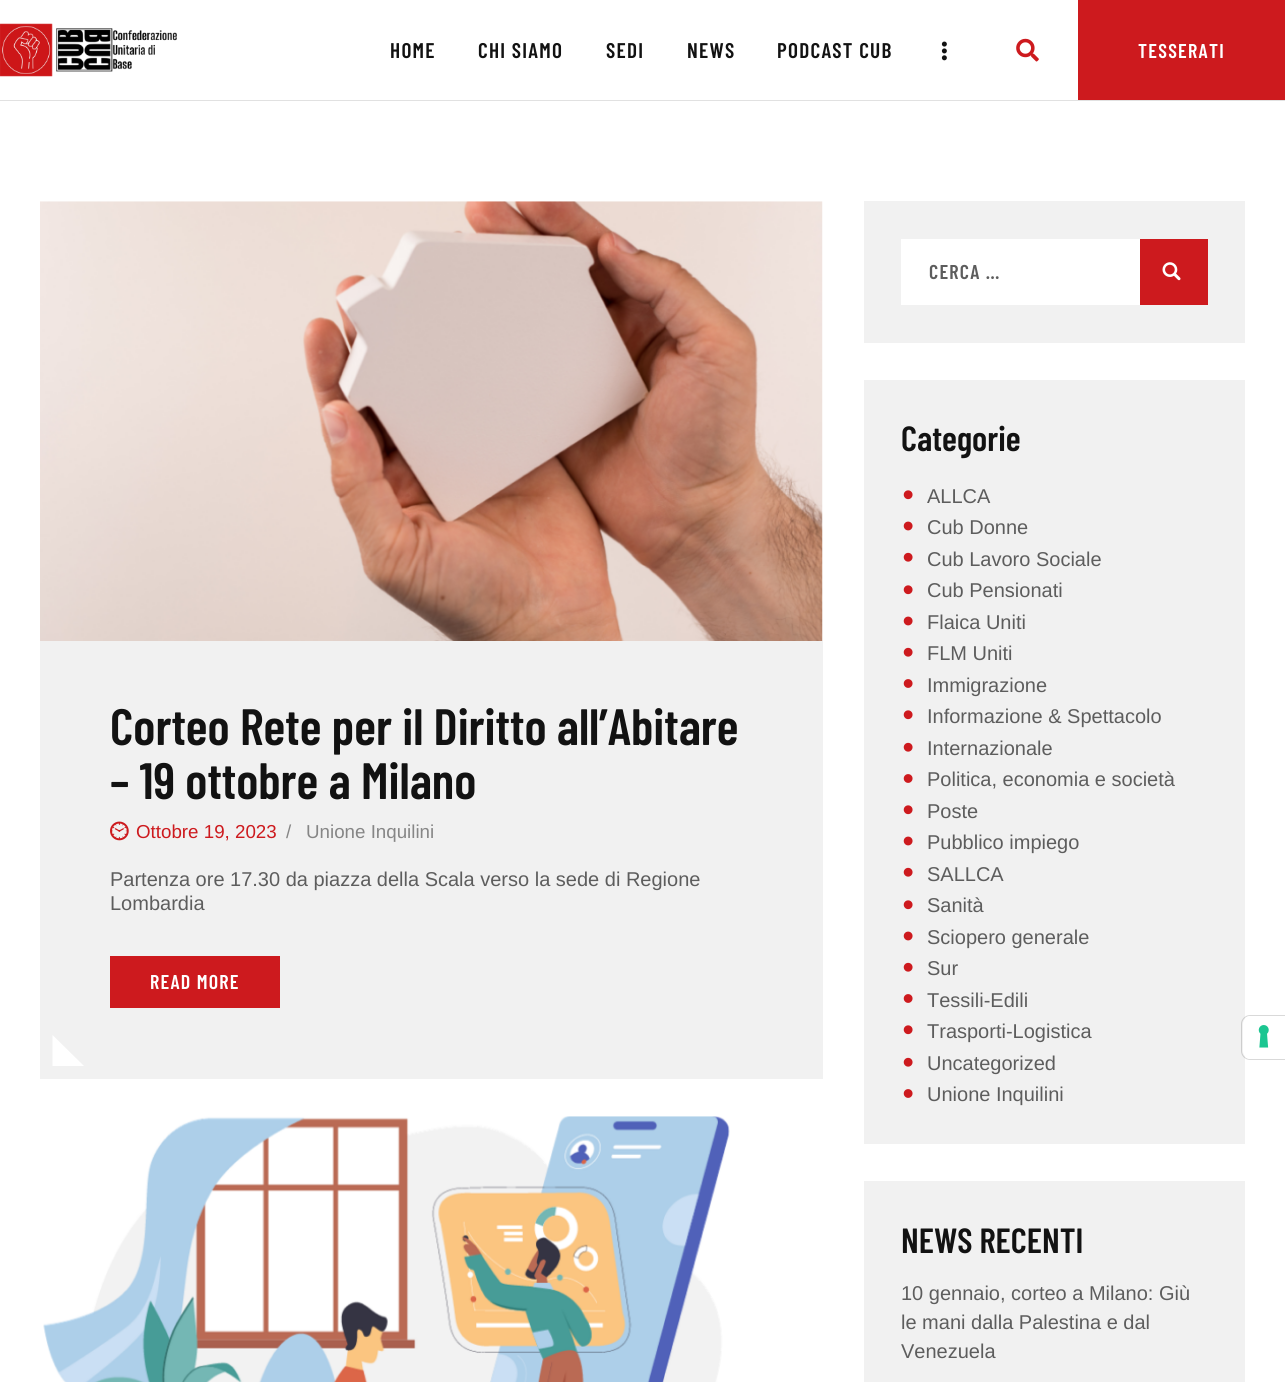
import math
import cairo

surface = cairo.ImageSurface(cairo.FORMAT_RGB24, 1285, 1382)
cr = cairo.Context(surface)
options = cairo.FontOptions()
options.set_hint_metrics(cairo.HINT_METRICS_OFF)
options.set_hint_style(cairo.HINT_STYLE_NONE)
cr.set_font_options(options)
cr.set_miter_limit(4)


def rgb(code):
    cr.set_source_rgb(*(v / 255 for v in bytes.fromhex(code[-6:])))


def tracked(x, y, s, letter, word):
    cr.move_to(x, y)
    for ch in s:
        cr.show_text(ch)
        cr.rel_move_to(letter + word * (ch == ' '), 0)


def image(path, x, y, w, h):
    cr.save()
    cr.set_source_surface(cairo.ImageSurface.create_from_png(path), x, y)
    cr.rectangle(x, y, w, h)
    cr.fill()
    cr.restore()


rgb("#ffffff")
cr.paint()
rgb("#e1e1e1")
cr.rectangle(0, 100, 1285, 1)
cr.fill()
image("img/1.png", 0, 23, 177, 54)
image("img/2.png", 941, 41, 6, 20)
image("img/3.png", 1016, 38, 23, 24)
rgb("#cd1a1e")
cr.rectangle(1078, 0, 207, 100)
cr.fill()
image("img/4.png", 40, 201, 783, 440)
rgb("#f1f1f1")
cr.rectangle(40, 641, 783, 438)
cr.fill()
image("img/5.png", 110, 821, 19, 20)
rgb("#cd1a1e")
cr.rectangle(110, 956, 170, 52)
cr.fill()
rgb("#ffffff")
cr.new_path()
cr.move_to(52.5, 1066)
cr.line_to(52.5, 1035)
cr.line_to(84, 1066)
cr.close_path()
cr.fill()
image("img/6.png", 43, 1116, 687, 266)
for x, y, w, h, color in [
    (864, 201, 381, 142, "#f1f1f1"),
    (1140, 239, 68, 66, "#cd1a1e"),
    (901, 239, 239, 66, "#ffffff"),
]:
    rgb(color)
    cr.rectangle(x, y, w, h)
    cr.fill()
image("img/7.png", 1162, 262, 19, 19)
rgb("#f1f1f1")
cr.rectangle(864, 380, 381, 764)
cr.fill()
image("img/8.png", 903, 490, 10, 10)
image("img/9.png", 903, 521, 10, 10)
image("img/10.png", 903, 552, 10, 10)
image("img/8.png", 903, 585, 10, 10)
image("img/9.png", 903, 616, 10, 10)
image("img/10.png", 903, 647, 10, 10)
image("img/11.png", 903, 679, 10, 9)
image("img/8.png", 903, 710, 10, 10)
image("img/10.png", 903, 742, 10, 10)
image("img/11.png", 903, 774, 10, 9)
image("img/8.png", 903, 805, 10, 10)
image("img/9.png", 903, 836, 10, 10)
image("img/10.png", 903, 867, 10, 10)
image("img/8.png", 903, 900, 10, 10)
image("img/9.png", 903, 931, 10, 10)
image("img/10.png", 903, 962, 10, 10)
image("img/11.png", 903, 994, 10, 9)
image("img/8.png", 903, 1025, 10, 10)
image("img/10.png", 903, 1057, 10, 10)
image("img/11.png", 903, 1089, 10, 9)
cr.rectangle(864, 1181, 381, 201)
cr.fill()
cr.new_path()
cr.move_to(1250, 1015.5)
cr.line_to(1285.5, 1015.5)
cr.line_to(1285.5, 1059.5)
cr.line_to(1250, 1059.5)
cr.curve_to(1245.5, 1059.5, 1241.5, 1055.5, 1241.5, 1051)
cr.line_to(1241.5, 1024)
cr.curve_to(1241.5, 1019.5, 1245.5, 1015.5, 1250, 1015.5)
cr.close_path()
cr.set_source_rgba(0, 0, 0, 0.15)
cr.set_line_width(1)
cr.stroke()
rgb("#ffffff")
cr.new_path()
cr.move_to(1251, 1016)
cr.line_to(1285, 1016)
cr.line_to(1285, 1059)
cr.line_to(1251, 1059)
cr.curve_to(1246.5, 1059, 1243, 1055.5, 1243, 1051)
cr.line_to(1243, 1024)
cr.curve_to(1243, 1019.5, 1246.5, 1016, 1251, 1016)
cr.close_path()
cr.fill()
image("img/12.png", 1258, 1025, 11, 23)
cr.select_font_face("Barlow Condensed SemiBold")
cr.set_font_size(21.25)
rgb("#121212")
for x, y, s in [
    (390, 58, "HOME"),
    (478, 58, "CHI SIAMO"),
    (606, 58, "SEDI"),
    (687, 58, "NEWS"),
    (777, 58, "PODCAST CUB"),
]:
    tracked(x, y, s, 1.25, 0)
cr.set_font_size(20)
rgb("#ffffff")
tracked(1138, 58, "TESSERATI", 1.25, 0)
cr.set_font_size(51.1)
rgb("#121212")
cr.move_to(110, 745)
cr.show_text("Corteo Rete per il Diritto all’Abitare")
cr.move_to(110, 799)
cr.show_text("– 19 ottobre a Milano")
cr.select_font_face("Liberation Sans")
cr.set_font_size(18.75)
rgb("#cd1a1e")
cr.move_to(136, 838)
cr.show_text("Ottobre 19, 2023")
rgb("#868686")
cr.move_to(286, 838)
cr.show_text("/")
cr.move_to(306, 838)
cr.show_text("Unione Inquilini")
cr.set_font_size(20)
rgb("#5d5d5d")
cr.move_to(110, 886)
cr.show_text("Partenza ore 17.30 da piazza della Scala verso la sede di Regione")
cr.move_to(110, 910)
cr.show_text("Lombardia")
cr.select_font_face("Barlow Condensed SemiBold")
rgb("#ffffff")
tracked(150, 989, "READ MORE", 1.25, 0)
rgb("#5d5d5d")
tracked(929, 279, "CERCA …", 1.25, 0)
cr.set_font_size(35)
rgb("#121212")
cr.move_to(901, 451)
cr.show_text("Categorie")
cr.select_font_face("Liberation Sans")
cr.set_font_size(20)
rgb("#5d5d5d")
for x, y, s in [
    (927, 503, "ALLCA"),
    (927, 534, "Cub Donne"),
    (927, 566, "Cub Lavoro Sociale"),
    (927, 597, "Cub Pensionati"),
    (927, 629, "Flaica Uniti"),
    (927, 660, "FLM Uniti"),
    (927, 692, "Immigrazione"),
    (927, 723, "Informazione & Spettacolo"),
    (927, 755, "Internazionale"),
    (927, 786, "Politica, economia e società"),
    (927, 818, "Poste"),
    (927, 849, "Pubblico impiego"),
    (927, 881, "SALLCA"),
    (927, 912, "Sanità"),
    (927, 944, "Sciopero generale"),
    (927, 975, "Sur"),
    (927, 1007, "Tessili-Edili"),
    (927, 1038, "Trasporti-Logistica"),
    (927, 1070, "Uncategorized"),
    (927, 1101, "Unione Inquilini"),
]:
    cr.move_to(x, y)
    cr.show_text(s)
cr.select_font_face("Barlow Condensed SemiBold")
cr.set_font_size(35)
rgb("#121212")
cr.move_to(901, 1253)
cr.show_text("NEWS RECENTI")
cr.select_font_face("Liberation Sans")
cr.set_font_size(20)
rgb("#5d5d5d")
for x, y, s in [
    (901, 1300, "10 gennaio, corteo a Milano: Giù"),
    (901, 1329, "le mani dalla Palestina e dal"),
    (901, 1358, "Venezuela"),
]:
    cr.move_to(x, y)
    cr.show_text(s)
surface.write_to_png("page.png")
